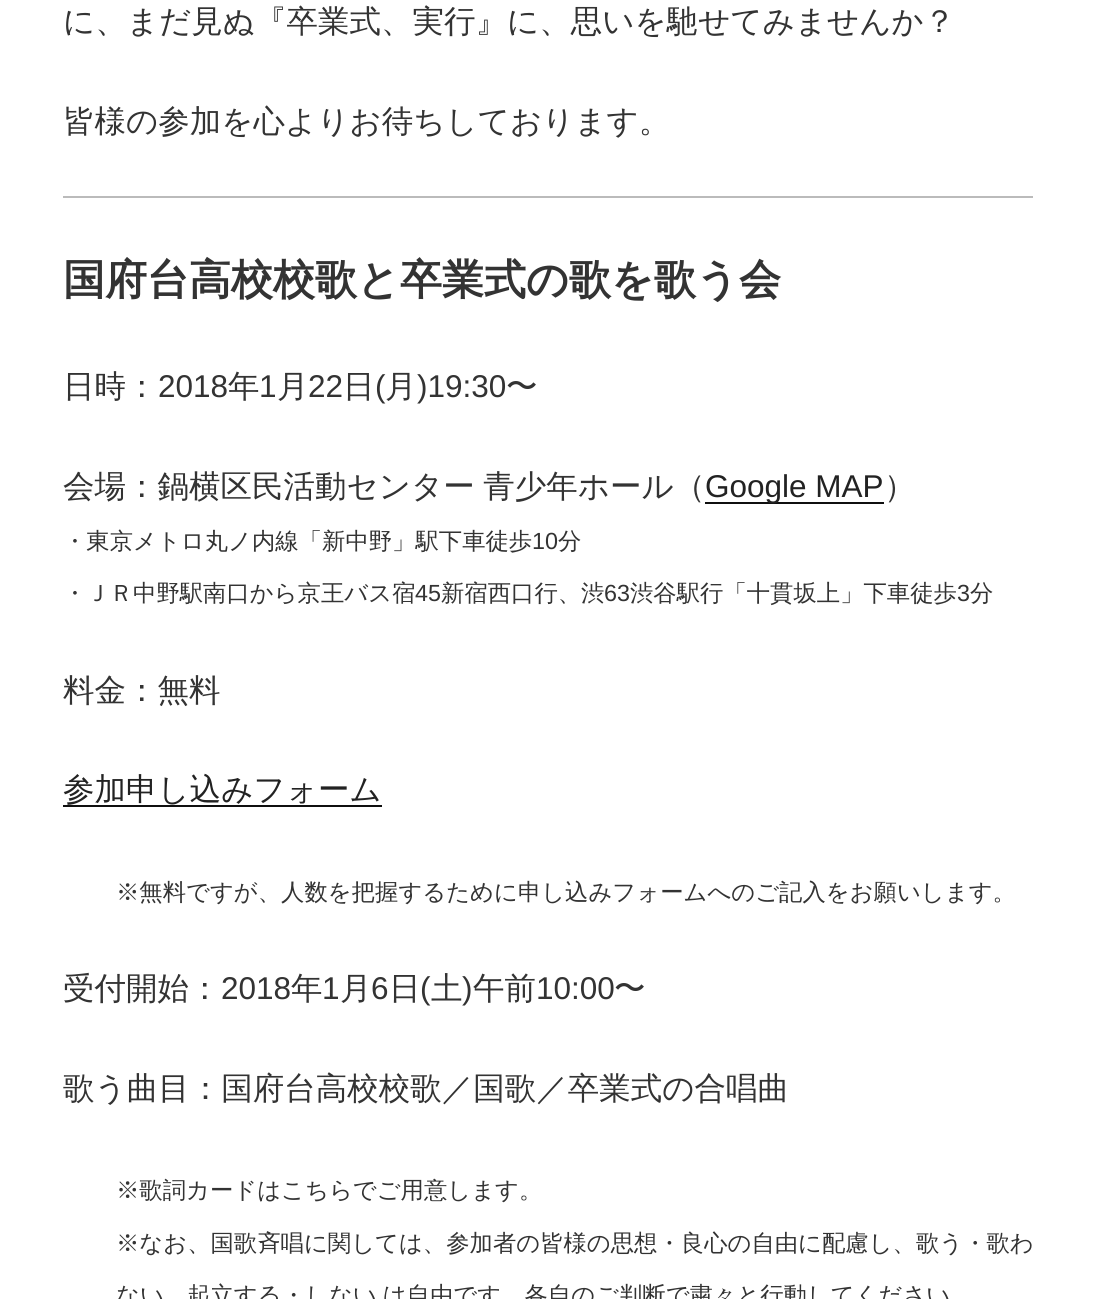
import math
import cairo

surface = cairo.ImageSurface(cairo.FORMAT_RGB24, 1095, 1299)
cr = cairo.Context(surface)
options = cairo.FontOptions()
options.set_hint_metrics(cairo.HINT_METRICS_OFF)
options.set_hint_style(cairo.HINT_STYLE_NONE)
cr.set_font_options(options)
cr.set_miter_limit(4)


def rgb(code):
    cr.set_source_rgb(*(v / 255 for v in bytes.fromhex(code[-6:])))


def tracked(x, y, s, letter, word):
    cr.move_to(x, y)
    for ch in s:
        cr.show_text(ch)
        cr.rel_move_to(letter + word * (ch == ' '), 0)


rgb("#ffffff")
cr.paint()
for x, y, w, h, color in [
    (63, 196, 970, 2, "#bbbbbb"),
    (705, 502, 179, 2, "#0f0f0f"),
    (63, 805, 319, 2, "#0f0f0f"),
]:
    rgb(color)
    cr.rectangle(x, y, w, h)
    cr.fill()
cr.select_font_face("WenQuanYi Zen Hei Medium")
cr.set_font_size(31.5)
rgb("#333333")
cr.move_to(63, 32)
cr.show_text("に、まだ見ぬ『卒業式、実行』に、思いを馳せてみませんか？")
cr.move_to(63, 132)
cr.show_text("皆様の参加を心よりお待ちしております。")
cr.select_font_face("WenQuanYi Zen Hei", cairo.FONT_SLANT_NORMAL, cairo.FONT_WEIGHT_BOLD)
cr.set_font_size(42)
cr.move_to(63, 294)
cr.show_text("国府台高校校歌と卒業式の歌を歌う会")
cr.select_font_face("WenQuanYi Zen Hei Medium")
cr.set_font_size(31.5)
cr.move_to(63, 397)
cr.show_text("日時：")
cr.select_font_face("Liberation Sans")
cr.move_to(158, 397)
cr.show_text("2018")
cr.select_font_face("WenQuanYi Zen Hei Medium")
cr.move_to(228, 397)
cr.show_text("年")
cr.select_font_face("Liberation Sans")
cr.move_to(259, 397)
cr.show_text("1")
cr.select_font_face("WenQuanYi Zen Hei Medium")
cr.move_to(277, 397)
cr.show_text("月")
cr.select_font_face("Liberation Sans")
cr.move_to(308, 397)
cr.show_text("22")
cr.select_font_face("WenQuanYi Zen Hei Medium")
cr.move_to(343, 397)
cr.show_text("日")
cr.select_font_face("Liberation Sans")
cr.move_to(375, 397)
cr.show_text("(")
cr.select_font_face("WenQuanYi Zen Hei Medium")
cr.move_to(385, 397)
cr.show_text("月")
cr.select_font_face("Liberation Sans")
cr.move_to(417, 397)
cr.show_text(")19:30")
cr.select_font_face("WenQuanYi Zen Hei Medium")
cr.move_to(506, 397)
cr.show_text("〜")
tracked(63, 497, "会場：鍋横区民活動センター 青少年ホール（", 0, -1)
cr.select_font_face("Liberation Sans")
rgb("#222222")
cr.move_to(705, 497)
cr.show_text("Google MAP")
cr.select_font_face("WenQuanYi Zen Hei Medium")
rgb("#333333")
cr.move_to(884, 497)
cr.show_text("）")
cr.set_font_size(23.35)
cr.move_to(63, 549)
cr.show_text("・東京メトロ丸ノ内線「新中野」駅下車徒歩")
cr.select_font_face("Liberation Sans")
cr.move_to(532, 549)
cr.show_text("10")
cr.select_font_face("WenQuanYi Zen Hei Medium")
cr.move_to(558, 549)
cr.show_text("分")
cr.move_to(63, 601)
cr.show_text("・ＪＲ中野駅南口から京王バス宿")
cr.select_font_face("Liberation Sans")
cr.move_to(415, 601)
cr.show_text("45")
cr.select_font_face("WenQuanYi Zen Hei Medium")
cr.move_to(441, 601)
cr.show_text("新宿西口行、渋")
cr.select_font_face("Liberation Sans")
cr.move_to(604, 601)
cr.show_text("63")
cr.select_font_face("WenQuanYi Zen Hei Medium")
cr.move_to(630, 601)
cr.show_text("渋谷駅行「十貫坂上」下車徒歩")
cr.select_font_face("Liberation Sans")
cr.move_to(957, 601)
cr.show_text("3")
cr.select_font_face("WenQuanYi Zen Hei Medium")
cr.move_to(970, 601)
cr.show_text("分")
cr.set_font_size(31.5)
cr.move_to(63, 701)
cr.show_text("料金：無料")
rgb("#222222")
cr.move_to(63, 800)
cr.show_text("参加申し込みフォーム")
cr.set_font_size(23.35)
rgb("#333333")
cr.move_to(116, 900)
cr.show_text("※無料ですが、人数を把握するために申し込みフォームへのご記入をお願いします。")
cr.set_font_size(31.5)
cr.move_to(63, 999)
cr.show_text("受付開始：")
cr.select_font_face("Liberation Sans")
cr.move_to(221, 999)
cr.show_text("2018")
cr.select_font_face("WenQuanYi Zen Hei Medium")
cr.move_to(291, 999)
cr.show_text("年")
cr.select_font_face("Liberation Sans")
cr.move_to(322, 999)
cr.show_text("1")
cr.select_font_face("WenQuanYi Zen Hei Medium")
cr.move_to(340, 999)
cr.show_text("月")
cr.select_font_face("Liberation Sans")
cr.move_to(371, 999)
cr.show_text("6")
cr.select_font_face("WenQuanYi Zen Hei Medium")
cr.move_to(389, 999)
cr.show_text("日")
cr.select_font_face("Liberation Sans")
cr.move_to(420, 999)
cr.show_text("(")
cr.select_font_face("WenQuanYi Zen Hei Medium")
cr.move_to(431, 999)
cr.show_text("土")
cr.select_font_face("Liberation Sans")
cr.move_to(462, 999)
cr.show_text(")")
cr.select_font_face("WenQuanYi Zen Hei Medium")
cr.move_to(473, 999)
cr.show_text("午前")
cr.select_font_face("Liberation Sans")
cr.move_to(536, 999)
cr.show_text("10:00")
cr.select_font_face("WenQuanYi Zen Hei Medium")
cr.move_to(614, 999)
cr.show_text("〜")
cr.move_to(63, 1099)
cr.show_text("歌う曲目：国府台高校校歌／国歌／卒業式の合唱曲")
cr.set_font_size(23.35)
cr.move_to(116, 1198)
cr.show_text("※歌詞カードはこちらでご用意します。")
cr.move_to(116, 1251)
cr.show_text("※なお、国歌斉唱に関しては、参加者の皆様の思想・良心の自由に配慮し、歌う・歌わ")
tracked(116, 1303, "ない、起立する・しない は自由です。各自のご判断で粛々と行動してください", 0, -1)
surface.write_to_png("page.png")
